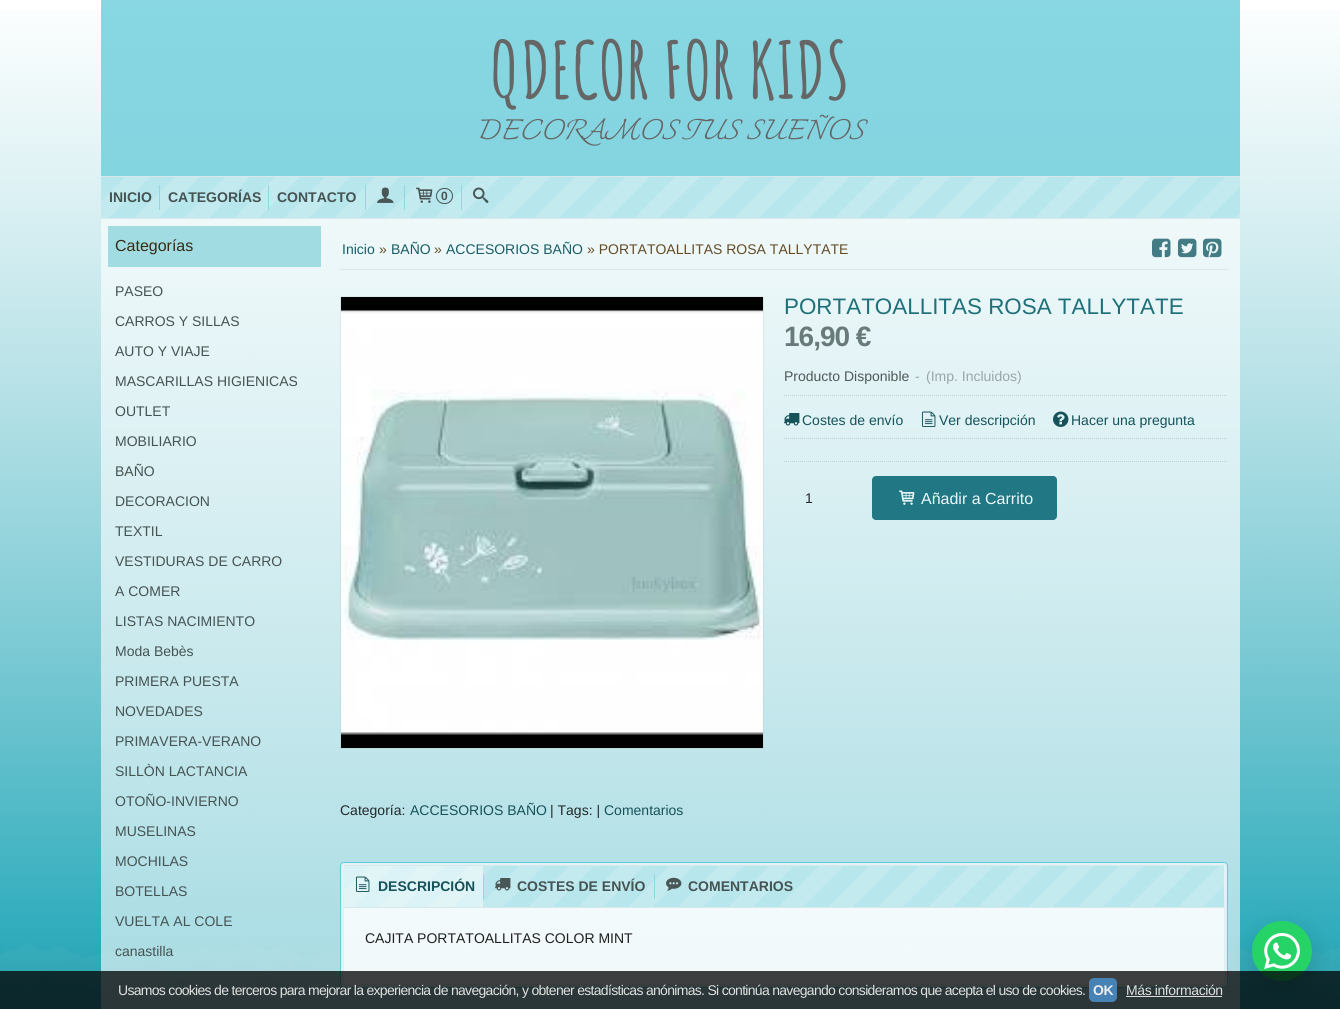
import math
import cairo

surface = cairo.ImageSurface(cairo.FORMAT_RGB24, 1340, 1009)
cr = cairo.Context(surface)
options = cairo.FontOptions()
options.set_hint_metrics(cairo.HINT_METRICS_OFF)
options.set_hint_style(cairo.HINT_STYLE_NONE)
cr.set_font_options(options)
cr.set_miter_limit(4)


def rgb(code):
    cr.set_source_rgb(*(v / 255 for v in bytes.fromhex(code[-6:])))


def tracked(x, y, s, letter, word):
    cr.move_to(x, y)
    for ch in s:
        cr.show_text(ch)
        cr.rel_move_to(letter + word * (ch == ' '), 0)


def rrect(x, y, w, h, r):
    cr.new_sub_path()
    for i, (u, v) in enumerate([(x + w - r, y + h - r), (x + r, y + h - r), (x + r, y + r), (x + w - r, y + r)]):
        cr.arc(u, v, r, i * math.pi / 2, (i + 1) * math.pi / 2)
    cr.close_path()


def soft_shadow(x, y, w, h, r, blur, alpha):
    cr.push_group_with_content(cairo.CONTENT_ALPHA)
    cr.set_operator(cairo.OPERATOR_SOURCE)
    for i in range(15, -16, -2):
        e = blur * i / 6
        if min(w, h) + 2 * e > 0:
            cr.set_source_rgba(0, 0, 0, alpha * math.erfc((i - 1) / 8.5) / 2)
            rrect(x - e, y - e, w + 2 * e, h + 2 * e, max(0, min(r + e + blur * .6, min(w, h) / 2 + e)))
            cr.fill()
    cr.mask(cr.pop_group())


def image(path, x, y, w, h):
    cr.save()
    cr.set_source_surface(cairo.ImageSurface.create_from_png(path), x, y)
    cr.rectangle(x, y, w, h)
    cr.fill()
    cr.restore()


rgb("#ffffff")
cr.paint()
image("img/1.png", 0, 10, 1340, 999)
cr.set_source_rgba(1, 1, 1, 0.6)
cr.rectangle(101, 10, 1139, 999)
cr.fill()
cr.set_source_rgba(0.227, 0.737, 0.812, 0.6)
cr.rectangle(101, 0, 1139, 176)
cr.fill()
rgb("#c2eaf0")
cr.rectangle(101, 177, 1139, 41)
cr.fill()
image("img/2.png", 101, 177, 1139, 41)
for x, y, w, h, color in [
    (101, 176, 1139, 1, "#d6e8eb"),
    (101, 218, 1139, 1, "#d6e8eb"),
    (159, 185, 1, 25, "#8dd8e2"),
    (268, 185, 1, 25, "#8dd8e2"),
    (365, 185, 1, 25, "#8dd8e2"),
]:
    rgb(color)
    cr.rectangle(x, y, w, h)
    cr.fill()
image("img/3.png", 377, 187, 17, 16)
cr.rectangle(404, 185, 1, 25)
cr.fill()
image("img/4.png", 416, 187, 17, 16)
rrect(436.5, 188.5, 16, 15, 7.5)
rgb("#485656")
cr.set_line_width(1)
cr.stroke()
rgb("#8dd8e2")
cr.rectangle(461, 185, 1, 25)
cr.fill()
image("img/5.png", 473, 187, 16, 16)
rgb("#a2dce3")
cr.rectangle(108, 226, 213, 41)
cr.fill()
rgb("#d6e8eb")
cr.rectangle(340, 269, 888, 1)
cr.fill()
image("img/6.png", 1152, 238, 19, 20)
image("img/7.png", 1177, 238, 20, 20)
image("img/8.png", 1203, 238, 19, 20)
cr.rectangle(340.5, 296.5, 423, 452)
cr.set_source_rgba(0.502, 0.502, 0.502, 0.1)
cr.stroke()
image("img/9.png", 341, 297, 422, 451)
cr.new_path()
cr.move_to(784, 395.5)
cr.line_to(1228, 395.5)
rgb("#c4d0d2")
cr.set_dash([1, 1])
cr.stroke()
image("img/10.png", 784, 413, 16, 13)
image("img/11.png", 921, 411, 15, 16)
image("img/12.png", 1053, 411, 16, 16)
cr.new_path()
cr.move_to(784, 438.5)
cr.line_to(1228, 438.5)
rgb("#c1cfd1")
cr.stroke()
cr.new_path()
cr.move_to(784, 461.5)
cr.line_to(1228, 461.5)
rgb("#c0cfd1")
cr.stroke()
rgb("#217783")
rrect(872, 476, 185, 44, 4)
cr.fill()
image("img/13.png", 899, 490, 16, 15)
cr.set_source_rgba(1, 1, 1, 0.6)
rrect(340.5, 862.5, 887, 125, 3.5)
cr.fill_preserve()
rgb("#64cbd8")
cr.set_dash([])
cr.stroke()
rgb("#c2eaf0")
cr.rectangle(344, 866, 880, 41)
cr.fill()
image("img/14.png", 344, 866, 880, 41)
rgb("#d6e8eb")
cr.rectangle(344, 865, 880, 1)
cr.rectangle(344, 907, 880, 1)
cr.fill()
cr.set_source_rgba(1, 1, 1, 0.5)
cr.rectangle(344, 866, 139, 41)
cr.fill()
image("img/15.png", 355, 876, 15, 16)
rgb("#8dd8e2")
cr.rectangle(483, 874, 1, 25)
cr.fill()
image("img/16.png", 495, 878, 16, 13)
cr.rectangle(654, 874, 1, 25)
cr.fill()
image("img/17.png", 666, 877, 16, 14)
cr.set_source_rgba(1, 1, 1, 0.6)
cr.new_path()
cr.move_to(344, 908)
cr.line_to(1224, 908)
cr.line_to(1224, 980)
cr.curve_to(1224, 982, 1222, 984, 1220, 984)
cr.line_to(348, 984)
cr.curve_to(346, 984, 344, 982, 344, 980)
cr.close_path()
cr.fill()
rgb("#075e54")
soft_shadow(1253, 927, 60, 60, 30, 12, 0.24)
rgb("#25d366")
cr.arc(1282, 951, 30, 0, 2 * math.pi)
cr.fill()
image("img/18.png", 1264, 933, 36, 36)
cr.set_source_rgba(0, 0, 0, 0.75)
cr.rectangle(0, 971, 1340, 38)
cr.fill()
rgb("#4682b4")
rrect(1089, 978, 28, 24, 5)
cr.fill()
rgb("#dddddd")
cr.rectangle(1126, 996, 96, 1)
cr.fill()
cr.select_font_face("Amatic SC", cairo.FONT_SLANT_NORMAL, cairo.FONT_WEIGHT_BOLD)
cr.set_font_size(78)
rgb("#666666")
cr.move_to(490, 99)
cr.show_text("QDECOR FOR KIDS")
cr.select_font_face("Charmonman", cairo.FONT_SLANT_ITALIC)
cr.set_font_size(28)
cr.move_to(476, 139)
cr.show_text("DECORAMOS TUS SUEÑOS")
cr.select_font_face("Liberation Sans", cairo.FONT_SLANT_NORMAL, cairo.FONT_WEIGHT_BOLD)
cr.set_font_size(14)
rgb("#465353")
for x, y, s in [
    (109, 202, "INICIO"),
    (168, 202, "CATEGORÍAS"),
    (277, 202, "CONTACTO"),
]:
    cr.move_to(x, y)
    cr.show_text(s)
cr.set_font_size(12)
cr.move_to(441, 200)
cr.show_text("0")
cr.select_font_face("Liberation Sans")
cr.set_font_size(16)
rgb("#382a15")
cr.move_to(115, 251)
cr.show_text("Categorías")
cr.set_font_size(14)
rgb("#465353")
for x, y, s in [
    (115, 296, "PASEO"),
    (115, 326, "CARROS Y SILLAS"),
    (115, 356, "AUTO Y VIAJE"),
    (115, 386, "MASCARILLAS HIGIENICAS"),
    (115, 416, "OUTLET"),
    (115, 446, "MOBILIARIO"),
    (115, 476, "BAÑO"),
    (115, 506, "DECORACION"),
    (115, 536, "TEXTIL"),
    (115, 566, "VESTIDURAS DE CARRO"),
    (115, 596, "A COMER"),
    (115, 626, "LISTAS NACIMIENTO"),
    (115, 656, "Moda Bebès"),
    (115, 686, "PRIMERA PUESTA"),
    (115, 716, "NOVEDADES"),
    (115, 746, "PRIMAVERA-VERANO"),
    (115, 776, "SILLÒN LACTANCIA"),
    (115, 806, "OTOÑO-INVIERNO"),
    (115, 836, "MUSELINAS"),
    (115, 866, "MOCHILAS"),
    (115, 896, "BOTELLAS"),
    (115, 926, "VUELTA AL COLE"),
    (115, 956, "canastilla"),
]:
    cr.move_to(x, y)
    cr.show_text(s)
rgb("#195d66")
cr.move_to(342, 254)
cr.show_text("Inicio")
rgb("#644b25")
cr.move_to(379, 254)
cr.show_text("»")
rgb("#195d66")
cr.move_to(391, 254)
cr.show_text("BAÑO")
rgb("#644b25")
cr.move_to(434, 254)
cr.show_text("»")
rgb("#195d66")
cr.move_to(446, 254)
cr.show_text("ACCESORIOS BAÑO")
rgb("#644b25")
cr.move_to(587, 254)
cr.show_text("» PORTATOALLITAS ROSA TALLYTATE")
cr.set_font_size(22.4)
rgb("#1f707a")
cr.move_to(784, 314)
cr.show_text("PORTATOALLITAS ROSA TALLYTATE")
cr.select_font_face("Liberation Sans", cairo.FONT_SLANT_NORMAL, cairo.FONT_WEIGHT_BOLD)
cr.set_font_size(28)
rgb("#697a7a")
tracked(784, 346, "16,90 €", -1, 0)
cr.select_font_face("Liberation Sans")
cr.set_font_size(14)
rgb("#4f5858")
cr.move_to(784, 381)
cr.show_text("Producto Disponible")
rgb("#99a6a7")
cr.move_to(915, 381)
cr.show_text("-")
cr.move_to(926, 381)
cr.show_text("(Imp. Incluidos)")
rgb("#16525a")
for x, y, s in [
    (802, 425, "Costes de envío"),
    (939, 425, "Ver descripción"),
    (1071, 425, "Hacer una pregunta"),
]:
    cr.move_to(x, y)
    cr.show_text(s)
rgb("#232929")
cr.move_to(805, 503)
cr.show_text("1")
cr.set_font_size(16)
rgb("#ebf8fa")
cr.move_to(921, 504)
cr.show_text("Añadir a Carrito")
cr.set_font_size(14)
rgb("#232929")
cr.move_to(340, 815)
cr.show_text("Categoría:")
rgb("#16525a")
cr.move_to(410, 815)
cr.show_text("ACCESORIOS BAÑO")
rgb("#232929")
cr.move_to(550, 815)
cr.show_text("| Tags: |")
rgb("#16525a")
cr.move_to(604, 815)
cr.show_text("Comentarios")
cr.select_font_face("Liberation Sans", cairo.FONT_SLANT_NORMAL, cairo.FONT_WEIGHT_BOLD)
cr.move_to(378, 891)
cr.show_text("DESCRIPCIÓN")
rgb("#465353")
cr.move_to(517, 891)
cr.show_text("COSTES DE ENVÍO")
cr.move_to(688, 891)
cr.show_text("COMENTARIOS")
cr.select_font_face("Liberation Sans")
rgb("#1f1f1f")
cr.move_to(365, 943)
cr.show_text("CAJITA PORTATOALLITAS COLOR MINT")
rgb("#e0e0e0")
tracked(118, 995, "Usamos cookies de terceros para mejorar la experiencia de navegación, y obtener estadísticas anónimas. Si continúa navegando consideramos que acepta el uso de cookies.", -0.7, 0)
cr.select_font_face("Liberation Sans", cairo.FONT_SLANT_NORMAL, cairo.FONT_WEIGHT_BOLD)
rgb("#eeeeee")
tracked(1093, 995, "OK", -0.4, 0)
cr.select_font_face("Liberation Sans")
rgb("#e0e0e0")
tracked(1126, 995, "Más información", -0.4, 0)
surface.write_to_png("page.png")
